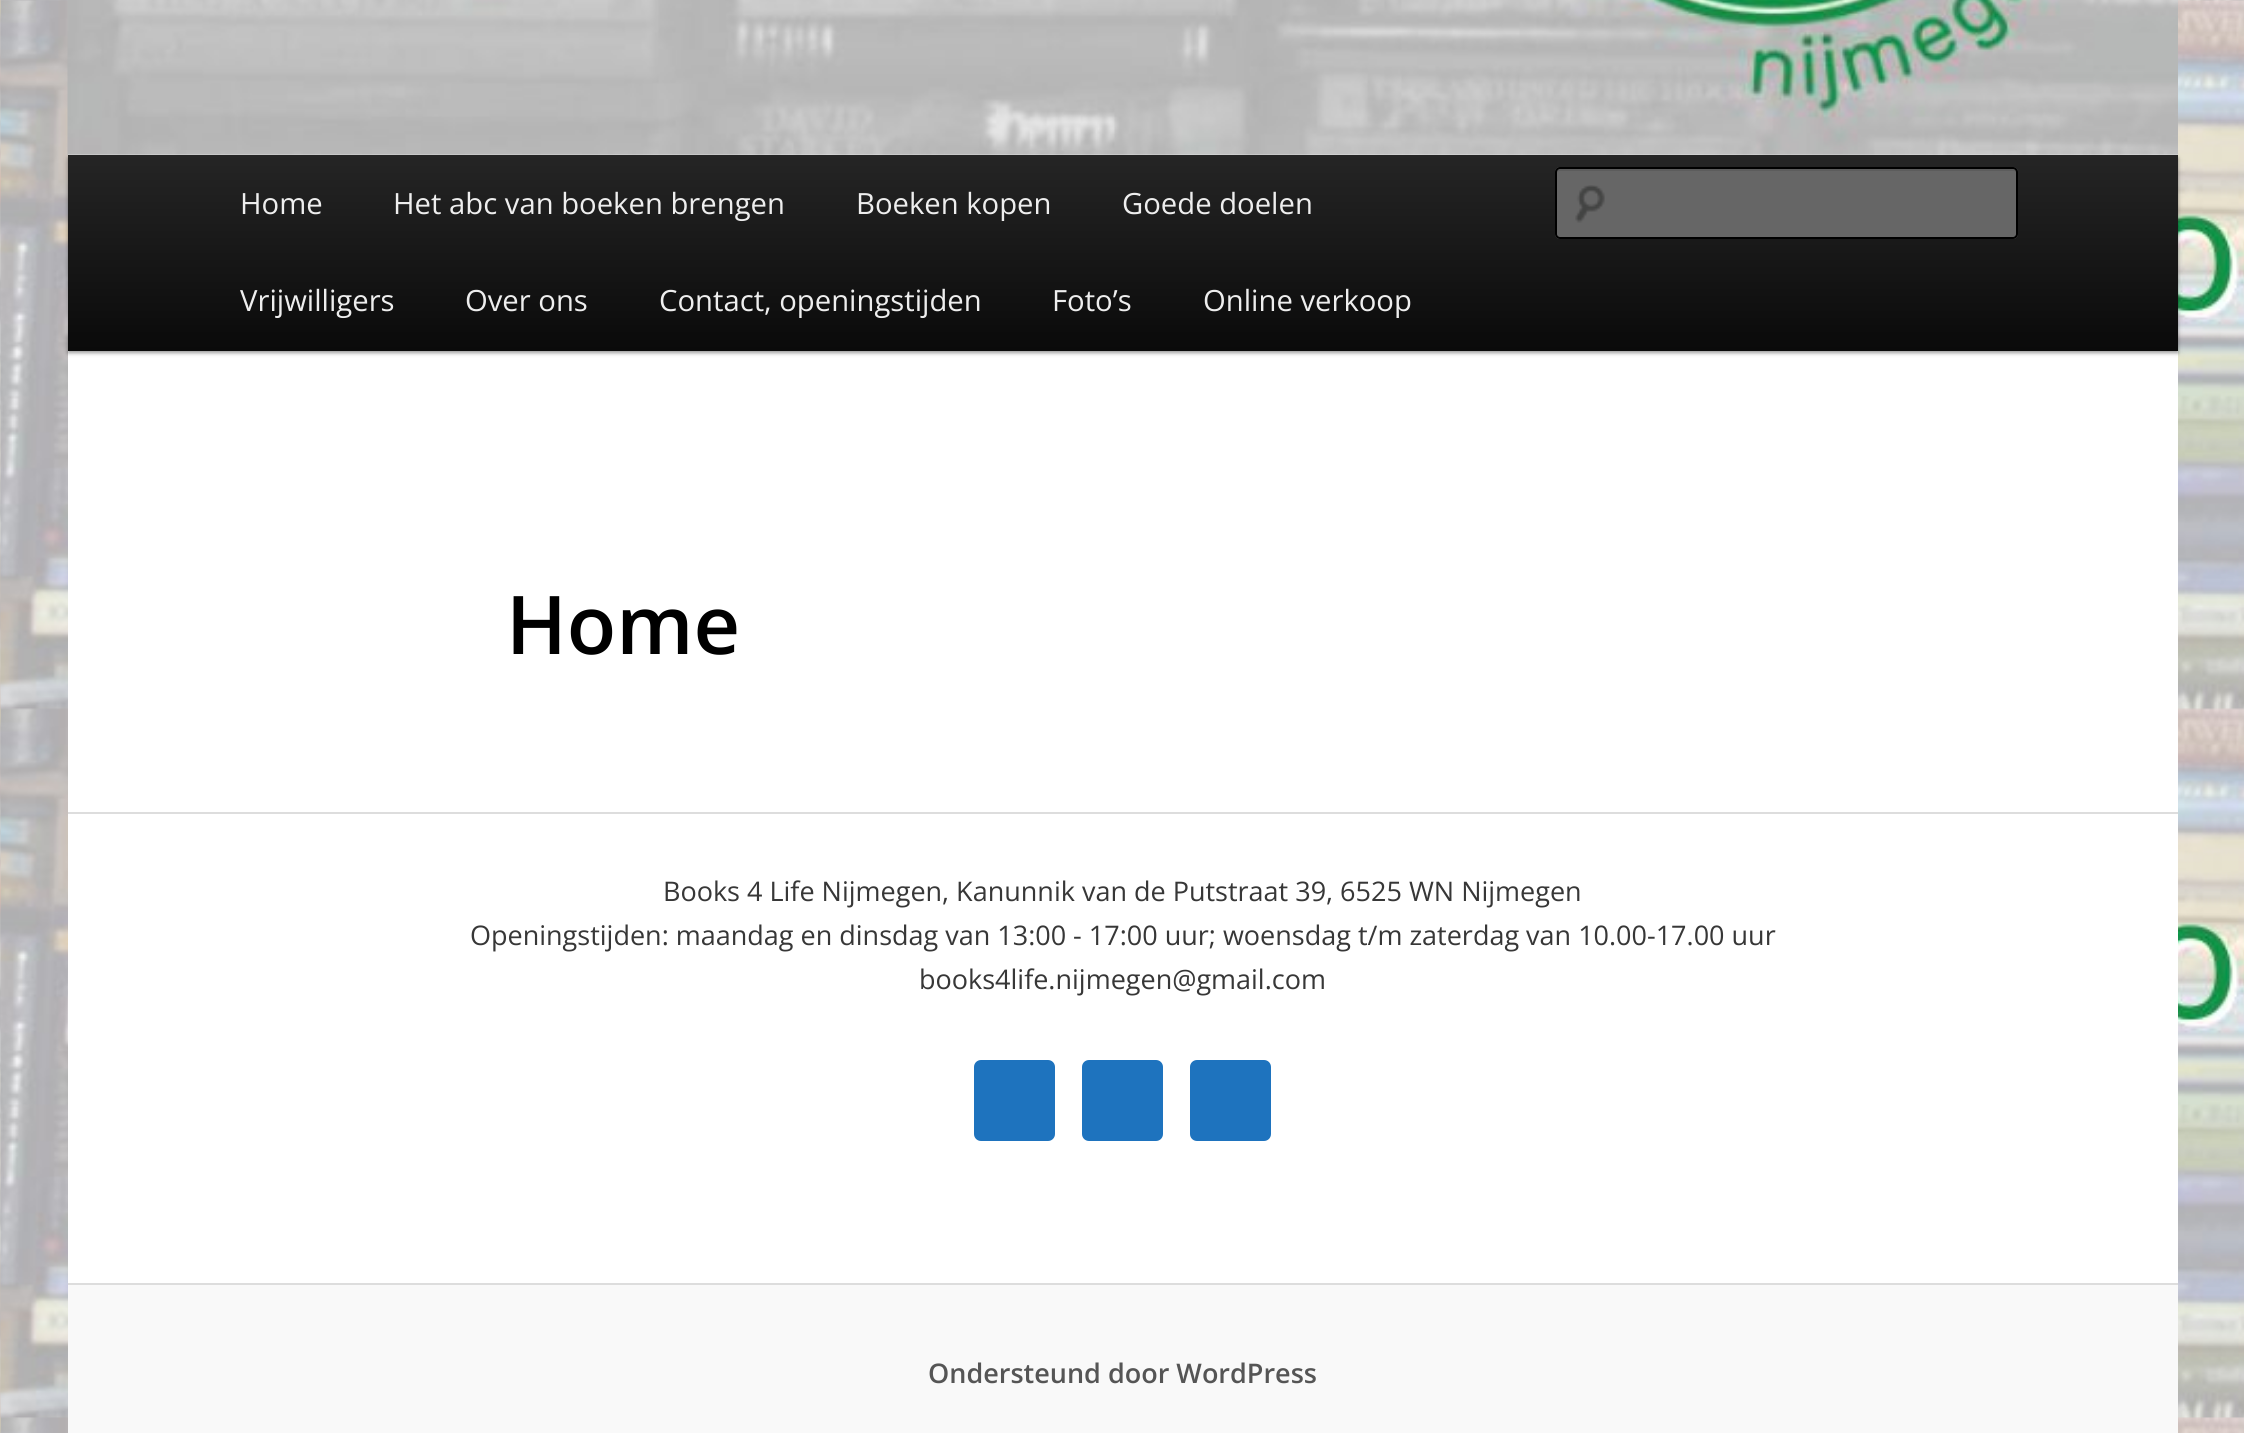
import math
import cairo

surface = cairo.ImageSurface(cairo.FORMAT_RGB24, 2244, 1433)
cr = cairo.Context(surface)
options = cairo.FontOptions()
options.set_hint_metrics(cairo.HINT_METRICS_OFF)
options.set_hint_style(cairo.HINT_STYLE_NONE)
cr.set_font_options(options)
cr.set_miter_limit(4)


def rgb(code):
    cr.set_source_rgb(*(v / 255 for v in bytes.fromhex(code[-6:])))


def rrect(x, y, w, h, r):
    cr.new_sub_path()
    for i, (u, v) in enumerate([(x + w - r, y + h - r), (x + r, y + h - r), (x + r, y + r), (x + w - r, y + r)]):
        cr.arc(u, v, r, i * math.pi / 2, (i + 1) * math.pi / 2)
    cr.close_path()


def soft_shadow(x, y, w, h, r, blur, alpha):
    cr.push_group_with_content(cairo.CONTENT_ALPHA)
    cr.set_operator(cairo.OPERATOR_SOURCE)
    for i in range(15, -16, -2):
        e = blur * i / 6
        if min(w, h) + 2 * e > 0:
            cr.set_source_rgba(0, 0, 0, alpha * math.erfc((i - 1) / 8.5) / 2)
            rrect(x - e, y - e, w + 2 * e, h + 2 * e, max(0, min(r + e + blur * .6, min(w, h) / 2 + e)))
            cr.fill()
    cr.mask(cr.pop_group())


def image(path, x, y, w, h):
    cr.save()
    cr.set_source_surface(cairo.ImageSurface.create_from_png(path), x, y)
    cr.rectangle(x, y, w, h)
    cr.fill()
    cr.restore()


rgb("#ffffff")
cr.paint()
image("img/1.png", 0, 0, 2244, 1433)
rgb("#ffffff")
cr.rectangle(68, 154, 2110, 1129)
cr.fill()
rgb("#000000")
soft_shadow(68, 158, 2110, 195, 0, 2, 0.4)
image("img/2.png", 67, 0, 2111, 155)
gradient = cairo.LinearGradient(1123, 155, 1123, 351)
gradient.add_color_stop_rgba(0, 0.145, 0.145, 0.145, 1)
gradient.add_color_stop_rgba(1, 0.039, 0.039, 0.039, 1)
cr.set_source(gradient)
cr.rectangle(68, 155, 2110, 196)
cr.fill()
rgb("#666666")
rrect(1555, 167, 463, 72, 5)
cr.fill()
image("img/3.png", 1575, 185, 30, 38)
rgb("#5c5c5c")
cr.new_path()
cr.move_to(1559, 171)
cr.line_to(2014, 171)
cr.curve_to(2015, 171, 2016, 172, 2016, 173)
cr.curve_to(2016, 171, 2016, 169, 2014, 169)
cr.line_to(1558, 169)
cr.line_to(1557, 170)
cr.line_to(1557, 173)
cr.curve_to(1557, 172, 1558, 171, 1559, 171)
cr.close_path()
cr.fill()
rrect(1556, 168, 461, 70, 4)
rgb("#000000")
cr.stroke()
rgb("#dddddd")
cr.rectangle(68, 812, 2110, 2)
cr.fill()
rgb("#1e73be")
rrect(974, 1060, 81, 81, 7)
cr.fill()
rrect(1082, 1060, 81, 81, 7)
cr.fill()
rrect(1190, 1060, 81, 81, 7)
cr.fill()
rgb("#f9f9f9")
cr.rectangle(68, 1285, 2110, 148)
cr.fill()
rgb("#dddddd")
cr.rectangle(68, 1283, 2110, 2)
cr.fill()
cr.select_font_face("Open Sans")
cr.set_font_size(29.25)
rgb("#eeeeee")
for x, y, s in [
    (240, 214, "Home"),
    (393, 214, "Het abc van boeken brengen"),
    (856, 214, "Boeken kopen"),
    (1122, 214, "Goede doelen"),
    (240, 311, "Vrijwilligers"),
    (465, 311, "Over ons"),
    (659, 311, "Contact, openingstijden"),
    (1052, 311, "Foto’s"),
    (1203, 311, "Online verkoop"),
]:
    cr.move_to(x, y)
    cr.show_text(s)
cr.select_font_face("Open Sans SemiBold")
cr.set_font_size(81)
rgb("#000000")
cr.move_to(506, 654)
cr.show_text("Home")
cr.select_font_face("Open Sans")
cr.set_font_size(27)
rgb("#373737")
for x, y, s in [
    (663, 901, "Books 4 Life Nijmegen, Kanunnik van de Putstraat 39, 6525 WN Nijmegen"),
    (470, 945, "Openingstijden: maandag en dinsdag van 13:00 - 17:00 uur; woensdag t/m zaterdag van 10.00-17.00 uur"),
    (919, 989, "books4life.nijmegen@gmail.com"),
]:
    cr.move_to(x, y)
    cr.show_text(s)
cr.select_font_face("Open Sans SemiBold")
rgb("#555555")
cr.move_to(928, 1383)
cr.show_text("Ondersteund door WordPress")
surface.write_to_png("page.png")
